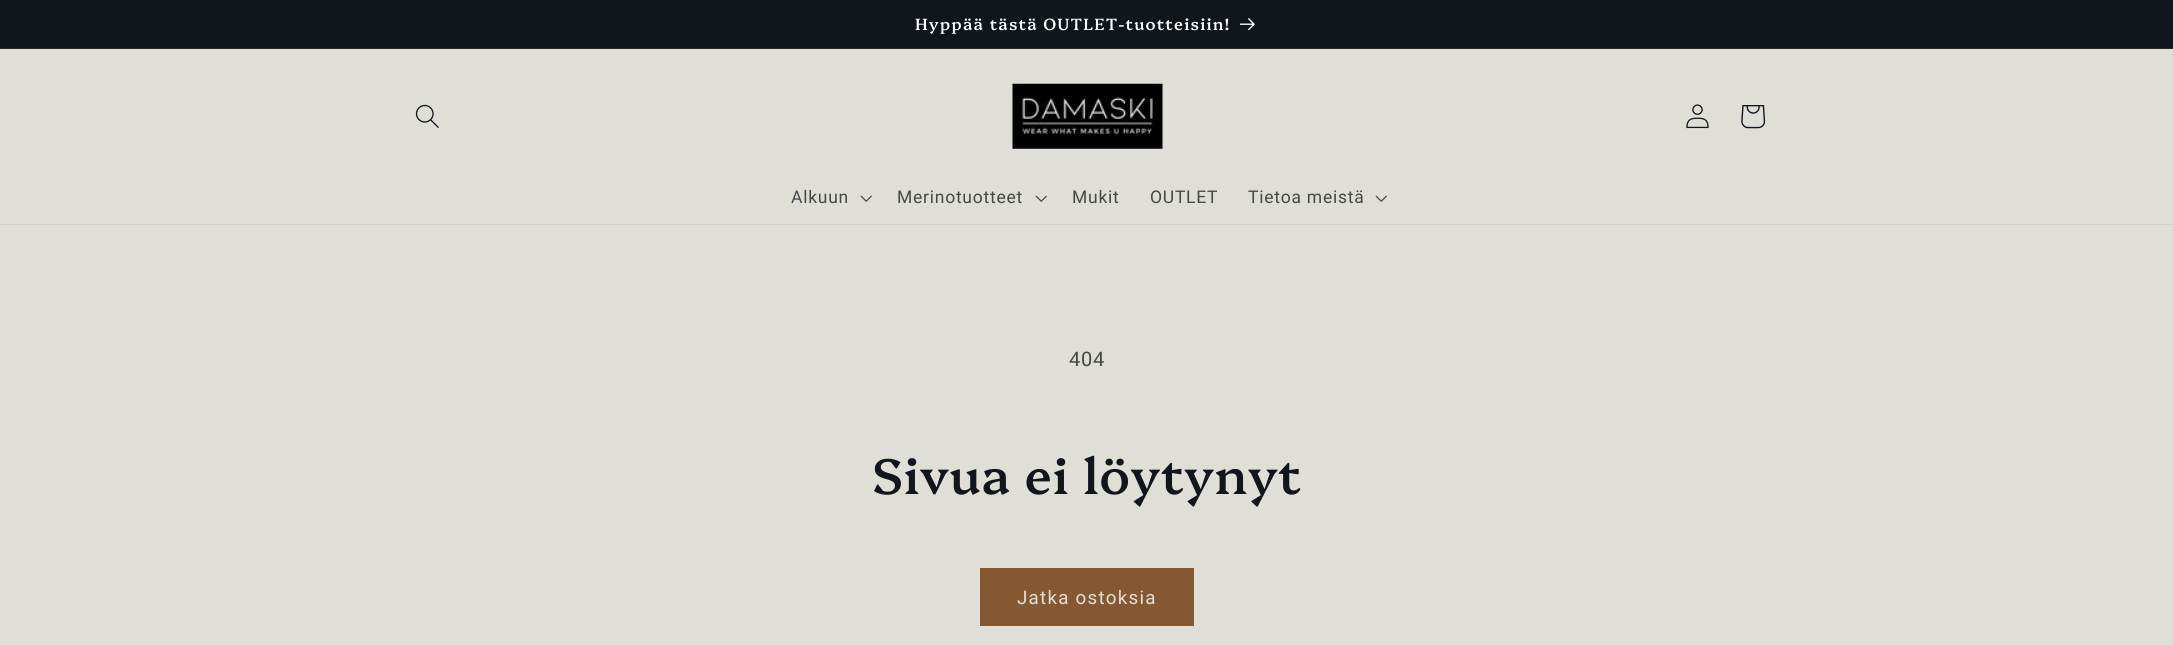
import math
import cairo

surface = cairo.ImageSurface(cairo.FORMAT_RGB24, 2173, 645)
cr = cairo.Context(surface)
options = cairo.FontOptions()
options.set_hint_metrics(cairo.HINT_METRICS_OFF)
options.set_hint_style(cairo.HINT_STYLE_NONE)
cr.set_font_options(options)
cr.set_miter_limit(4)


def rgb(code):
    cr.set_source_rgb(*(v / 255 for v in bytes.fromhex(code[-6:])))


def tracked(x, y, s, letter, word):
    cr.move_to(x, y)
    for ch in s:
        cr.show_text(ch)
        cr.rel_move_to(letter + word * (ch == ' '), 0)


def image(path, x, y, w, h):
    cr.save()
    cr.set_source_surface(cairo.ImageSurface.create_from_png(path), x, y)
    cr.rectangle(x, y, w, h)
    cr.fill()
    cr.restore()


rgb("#dfdfd8")
cr.paint()
rgb("#11151c")
cr.rectangle(0, 0, 2173, 48)
cr.fill()
rgb("#24282e")
cr.rectangle(0, 48, 2173, 1)
cr.fill()
image("img/1.png", 1240, 18, 15, 13)
rgb("#cfcfc9")
cr.rectangle(0, 224, 2173, 1)
cr.fill()
image("img/2.png", 415, 104, 24, 24)
image("img/3.png", 1012, 83, 151, 66)
image("img/4.png", 1686, 104, 23, 25)
image("img/5.png", 1741, 105, 25, 24)
image("img/6.png", 860, 195, 12, 7)
image("img/6.png", 1035, 195, 12, 7)
image("img/6.png", 1375, 195, 12, 7)
rgb("#855832")
cr.rectangle(980, 568, 214, 58)
cr.fill()
cr.select_font_face("Platypi Medium")
cr.set_font_size(16.25)
rgb("#ffffff")
tracked(915, 30, "Hyppää tästä OUTLET-tuotteisiin!", 1.25, 0)
cr.select_font_face("Roboto")
cr.set_font_size(17.5)
rgb("#45484b")
for x, y, s in [
    (791, 203, "Alkuun"),
    (897, 203, "Merinotuotteet"),
    (1072, 203, "Mukit"),
    (1150, 203, "OUTLET"),
    (1248, 203, "Tietoa meistä"),
]:
    tracked(x, y, s, 0.75, 0)
cr.set_font_size(20)
tracked(1069, 366, "404", 0.75, 0)
cr.select_font_face("Platypi Medium")
cr.set_font_size(50)
rgb("#11151c")
tracked(872, 494, "Sivua ei löytynyt", 0.75, 0)
cr.select_font_face("Roboto")
cr.set_font_size(18.75)
rgb("#dfdfd8")
tracked(1017, 604, "Jatka ostoksia", 1.25, 0)
surface.write_to_png("page.png")
